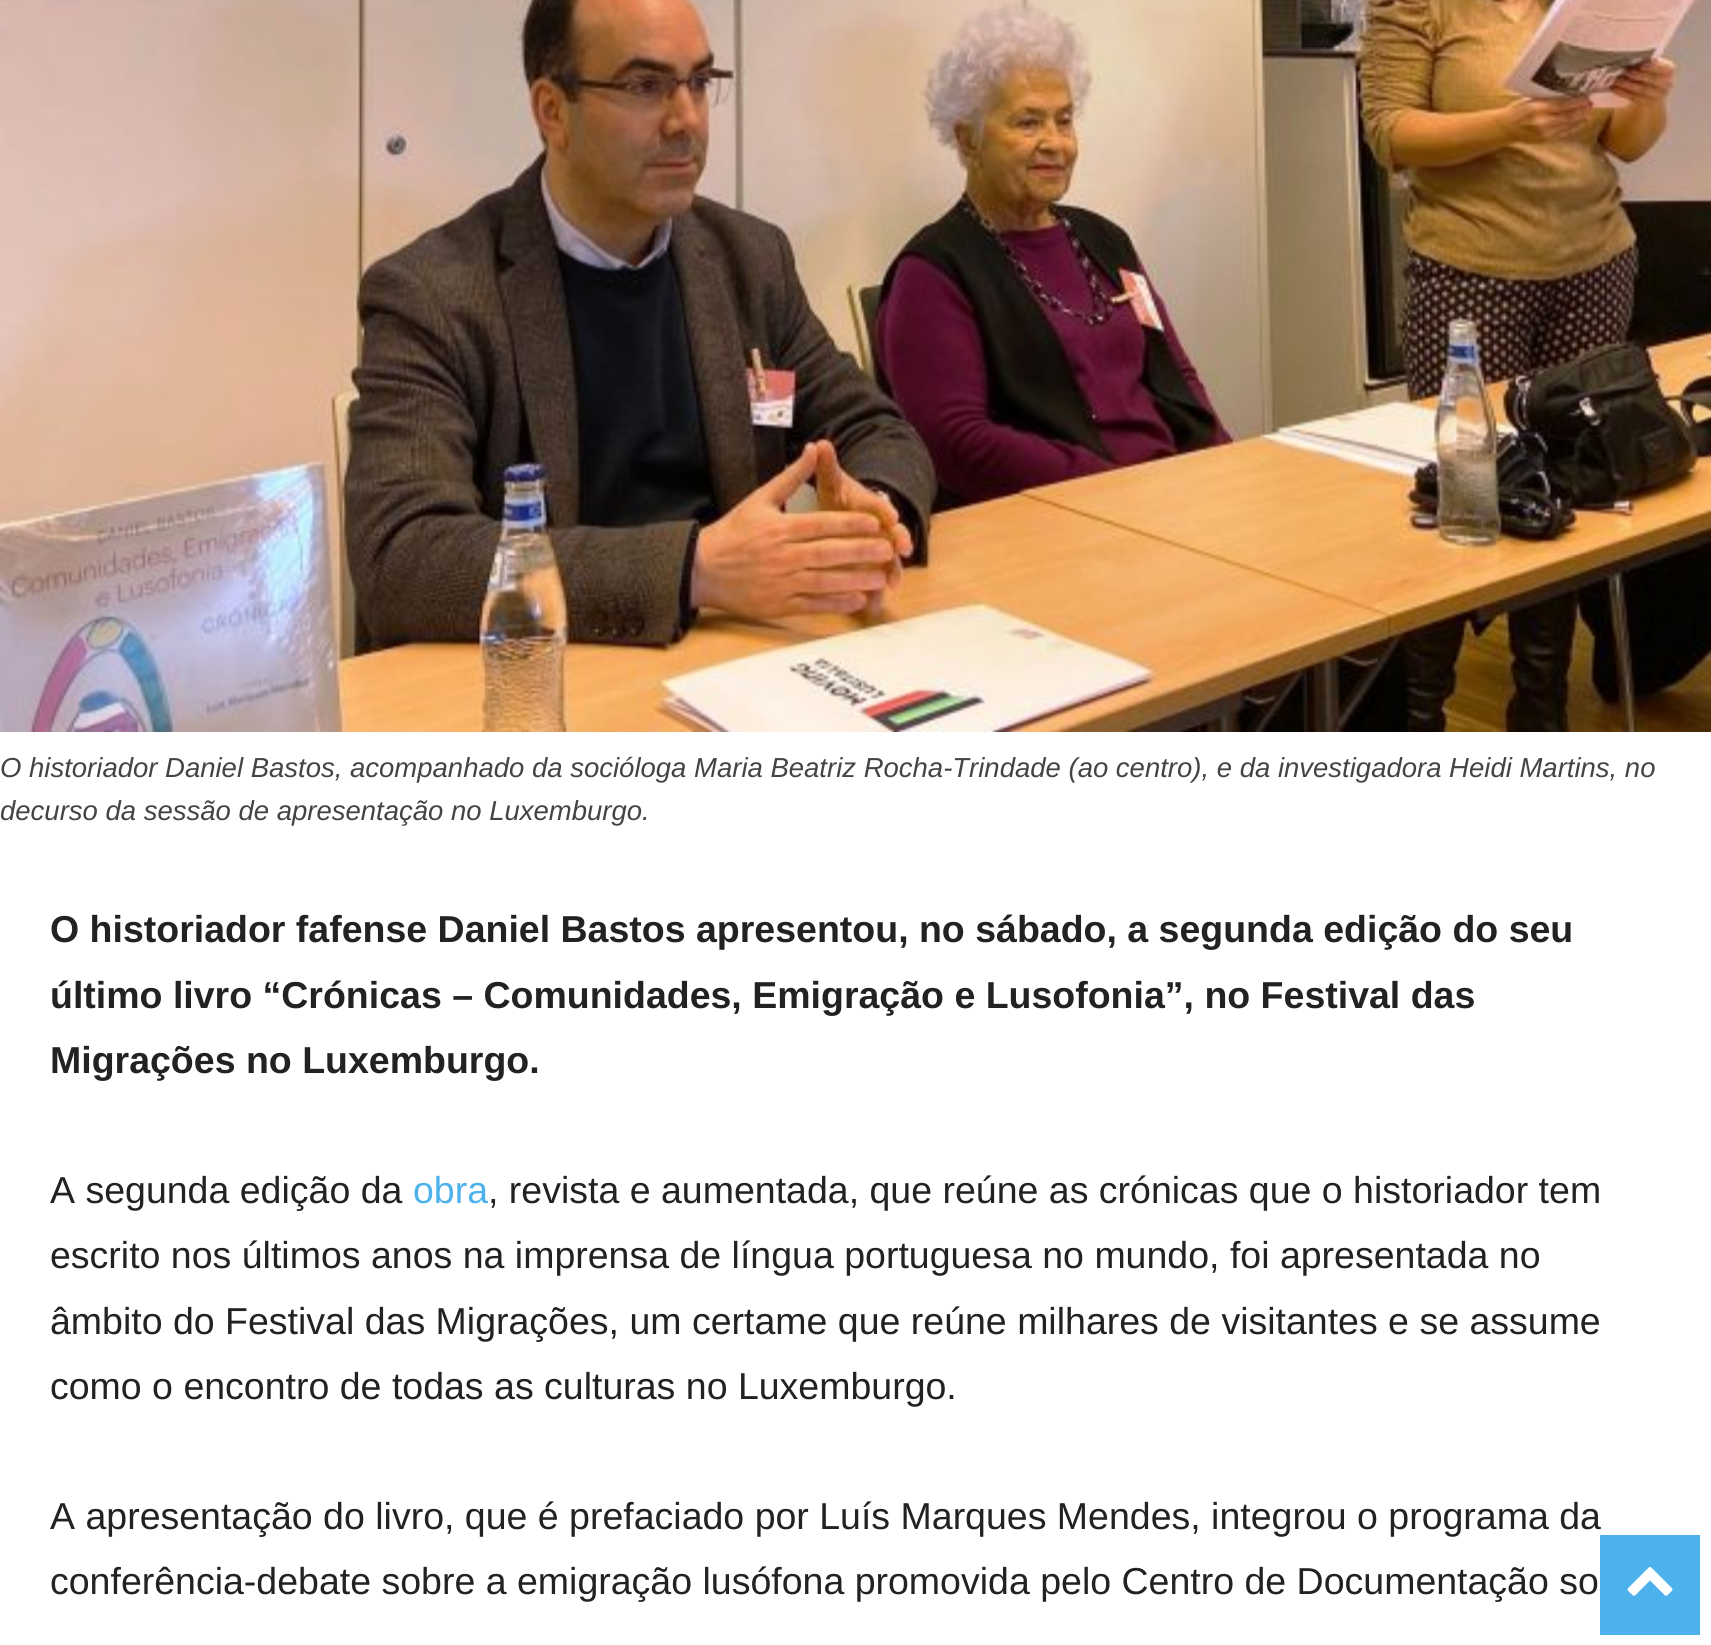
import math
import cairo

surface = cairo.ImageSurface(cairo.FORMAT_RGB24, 1711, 1645)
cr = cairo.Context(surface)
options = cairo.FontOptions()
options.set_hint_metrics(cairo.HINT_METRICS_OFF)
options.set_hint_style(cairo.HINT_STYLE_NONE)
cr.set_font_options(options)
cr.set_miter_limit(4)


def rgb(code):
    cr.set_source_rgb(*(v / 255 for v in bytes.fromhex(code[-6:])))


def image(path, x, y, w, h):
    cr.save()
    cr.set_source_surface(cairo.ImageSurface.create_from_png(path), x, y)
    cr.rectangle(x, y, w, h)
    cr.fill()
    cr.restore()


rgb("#ffffff")
cr.paint()
image("img/1.png", 0, 0, 1711, 732)
cr.select_font_face("Liberation Sans", cairo.FONT_SLANT_ITALIC)
cr.set_font_size(27.5)
rgb("#444444")
cr.move_to(0, 777)
cr.show_text("O historiador Daniel Bastos, acompanhado da socióloga Maria Beatriz Rocha-Trindade (ao centro), e da investigadora Heidi Martins, no")
cr.move_to(0, 820)
cr.show_text("decurso da sessão de apresentação no Luxemburgo.")
cr.select_font_face("Liberation Sans", cairo.FONT_SLANT_NORMAL, cairo.FONT_WEIGHT_BOLD)
cr.set_font_size(37.5)
rgb("#222222")
for x, y, s in [
    (50, 942, "O historiador fafense Daniel Bastos apresentou, no sábado, a segunda edição do seu"),
    (50, 1008, "último livro “Crónicas – Comunidades, Emigração e Lusofonia”, no Festival das"),
    (50, 1073, "Migrações no Luxemburgo."),
]:
    cr.move_to(x, y)
    cr.show_text(s)
cr.select_font_face("Liberation Sans")
cr.move_to(50, 1203)
cr.show_text("A segunda edição da")
rgb("#4db2ec")
cr.move_to(413, 1203)
cr.show_text("obra")
rgb("#222222")
for x, y, s in [
    (488, 1203, ", revista e aumentada, que reúne as crónicas que o historiador tem"),
    (50, 1268, "escrito nos últimos anos na imprensa de língua portuguesa no mundo, foi apresentada no"),
    (50, 1334, "âmbito do Festival das Migrações, um certame que reúne milhares de visitantes e se assume"),
    (50, 1399, "como o encontro de todas as culturas no Luxemburgo."),
    (50, 1529, "A apresentação do livro, que é prefaciado por Luís Marques Mendes, integrou o programa da"),
    (50, 1594, "conferência-debate sobre a emigração lusófona promovida pelo Centro de Documentação so"),
]:
    cr.move_to(x, y)
    cr.show_text(s)
rgb("#4db2ec")
cr.rectangle(1600, 1535, 100, 100)
cr.fill()
image("img/2.png", 1627, 1567, 46, 29)
surface.write_to_png("page.png")
